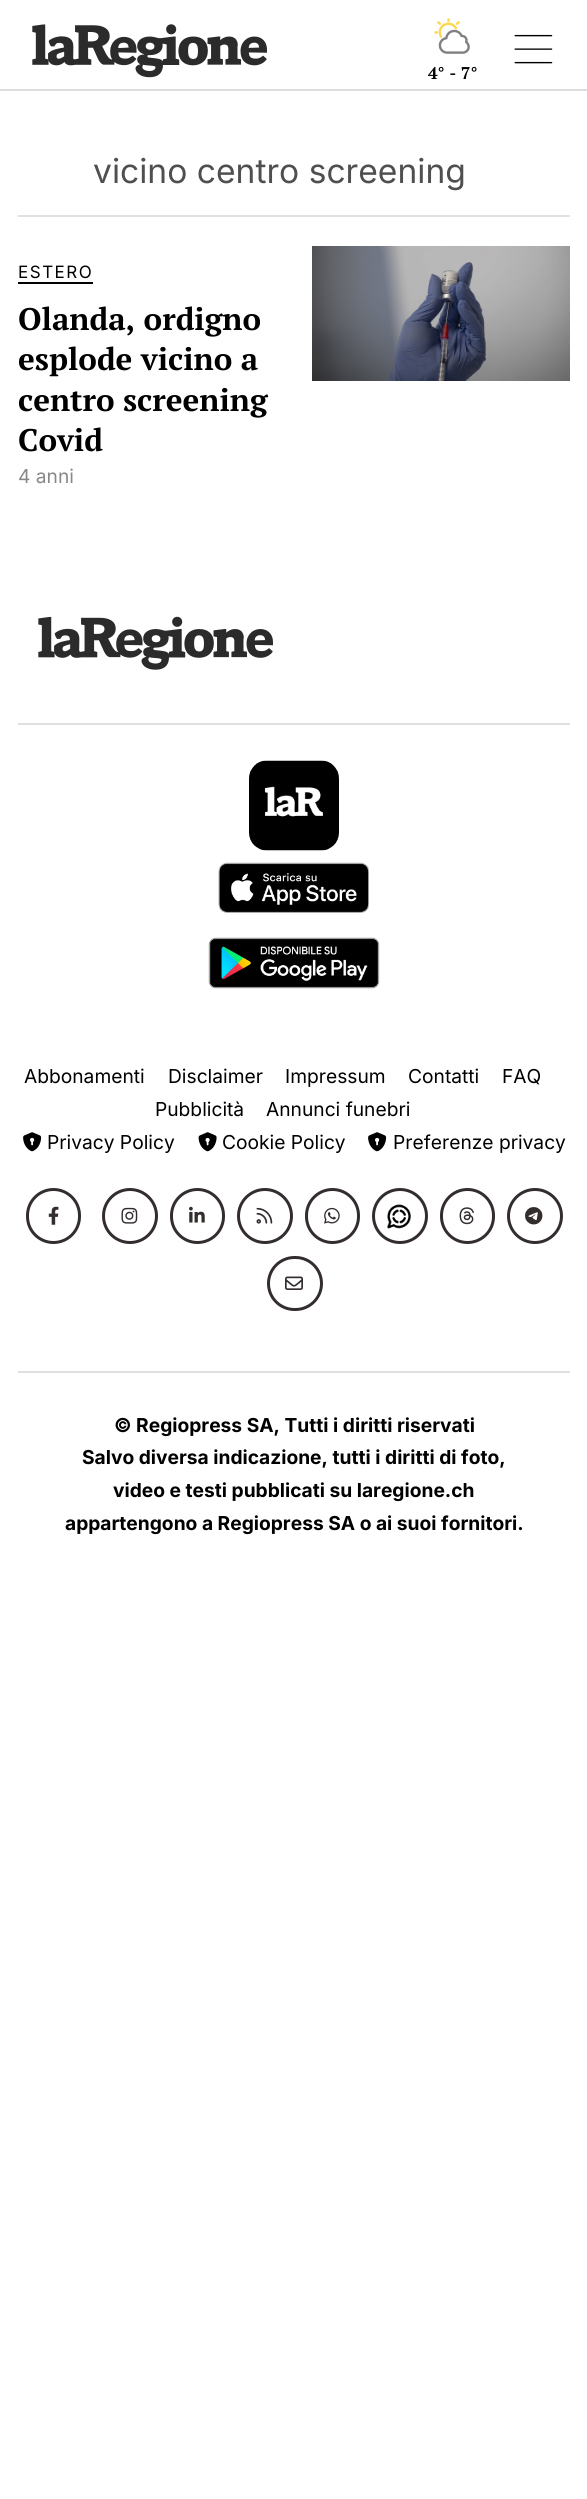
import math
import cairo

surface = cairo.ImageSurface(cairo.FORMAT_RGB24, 587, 2499)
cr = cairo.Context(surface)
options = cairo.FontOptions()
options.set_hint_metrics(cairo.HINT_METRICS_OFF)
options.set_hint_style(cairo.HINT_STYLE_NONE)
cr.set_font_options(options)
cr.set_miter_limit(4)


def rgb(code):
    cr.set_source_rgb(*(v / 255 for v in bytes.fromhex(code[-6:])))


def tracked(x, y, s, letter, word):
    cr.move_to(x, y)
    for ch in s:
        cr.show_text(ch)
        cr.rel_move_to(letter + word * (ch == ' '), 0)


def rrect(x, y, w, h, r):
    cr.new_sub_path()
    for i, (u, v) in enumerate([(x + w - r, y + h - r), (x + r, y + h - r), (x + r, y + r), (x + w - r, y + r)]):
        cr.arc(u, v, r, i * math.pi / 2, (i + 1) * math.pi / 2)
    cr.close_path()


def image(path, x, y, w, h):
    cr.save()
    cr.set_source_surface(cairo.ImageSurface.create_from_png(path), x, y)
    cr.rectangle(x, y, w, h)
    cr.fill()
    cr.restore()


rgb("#ffffff")
cr.paint()
rgb("#dddddd")
cr.rectangle(0, 89, 587, 2)
cr.fill()
image("img/1.png", 32, 24, 235, 54)
image("img/2.png", 514, 34, 39, 30)
image("img/3.png", 434, 18, 36, 36)
rgb("#e0e0e0")
cr.rectangle(18, 215, 552, 2)
cr.fill()
rgb("#000000")
cr.rectangle(18, 282, 75, 2)
cr.fill()
image("img/4.png", 312, 246, 258, 135)
image("img/5.png", 38, 616, 235, 54)
rgb("#e0e0e0")
cr.rectangle(18, 723, 552, 2)
cr.fill()
image("img/6.png", 249, 760, 90, 91)
image("img/7.png", 218, 862, 151, 51)
image("img/8.png", 208, 937, 172, 52)
image("img/9.png", 23, 1132, 19, 20)
image("img/10.png", 198, 1132, 19, 20)
image("img/9.png", 368, 1132, 19, 20)
rrect(27.5, 1189.5, 52, 53, 26)
rgb("#332d2d")
cr.set_line_width(3)
cr.stroke()
image("img/11.png", 48, 1206, 11, 19)
cr.arc(130, 1216, 26.5, 0, 2 * math.pi)
cr.stroke()
image("img/12.png", 121, 1207, 17, 17)
rrect(171.5, 1189.5, 52, 53, 26)
cr.stroke()
image("img/13.png", 189, 1206, 16, 17)
cr.arc(265, 1216, 26.5, 0, 2 * math.pi)
cr.stroke()
image("img/14.png", 256, 1207, 17, 17)
rrect(306.5, 1189.5, 52, 53, 26)
cr.stroke()
image("img/15.png", 324, 1207, 16, 17)
cr.arc(400, 1216, 26.5, 0, 2 * math.pi)
cr.stroke()
image("img/16.png", 387, 1204, 24, 25)
rrect(441.5, 1189.5, 52, 53, 26)
cr.stroke()
image("img/17.png", 459, 1207, 15, 18)
cr.arc(535, 1216, 26.5, 0, 2 * math.pi)
cr.stroke()
image("img/18.png", 525, 1207, 18, 18)
rrect(268.5, 1257.5, 53, 52, 26)
cr.stroke()
image("img/19.png", 285, 1276, 18, 14)
rgb("#e0e0e0")
cr.rectangle(18, 1371, 552, 2)
cr.fill()
cr.select_font_face("PT Serif", cairo.FONT_SLANT_NORMAL, cairo.FONT_WEIGHT_BOLD)
cr.set_font_size(17)
rgb("#000000")
cr.move_to(428, 79)
cr.show_text("4° - 7°")
cr.select_font_face("Inter")
cr.set_font_size(33.6)
rgb("#4f4f4f")
cr.move_to(93, 183)
cr.show_text("vicino centro screening")
cr.set_font_size(17)
rgb("#000000")
tracked(18, 278, "ESTERO", 1.5, 0)
cr.select_font_face("PT Serif", cairo.FONT_SLANT_NORMAL, cairo.FONT_WEIGHT_BOLD)
cr.set_font_size(31.25)
for x, y, s in [
    (18, 330, "Olanda, ordigno"),
    (18, 370, "esplode vicino a"),
    (18, 411, "centro screening"),
    (18, 451, "Covid"),
]:
    cr.move_to(x, y)
    cr.show_text(s)
cr.select_font_face("Inter")
cr.set_font_size(19.2)
rgb("#888888")
cr.move_to(18, 483)
cr.show_text("4 anni")
rgb("#000000")
for x, y, s in [
    (24, 1083, "Abbonamenti"),
    (168, 1083, "Disclaimer"),
    (285, 1083, "Impressum"),
    (408, 1083, "Contatti"),
    (502, 1083, "FAQ"),
    (155, 1116, "Pubblicità"),
    (266, 1116, "Annunci funebri"),
    (47, 1149, "Privacy Policy"),
    (222, 1149, "Cookie Policy"),
    (393, 1149, "Preferenze privacy"),
]:
    cr.move_to(x, y)
    cr.show_text(s)
cr.select_font_face("Inter", cairo.FONT_SLANT_NORMAL, cairo.FONT_WEIGHT_BOLD)
for x, y, s in [
    (114, 1432, "© Regiopress SA, Tutti i diritti riservati"),
    (82, 1464, "Salvo diversa indicazione, tutti i diritti di foto,"),
    (113, 1497, "video e testi pubblicati su laregione.ch"),
    (65, 1530, "appartengono a Regiopress SA o ai suoi fornitori."),
]:
    cr.move_to(x, y)
    cr.show_text(s)
surface.write_to_png("page.png")
